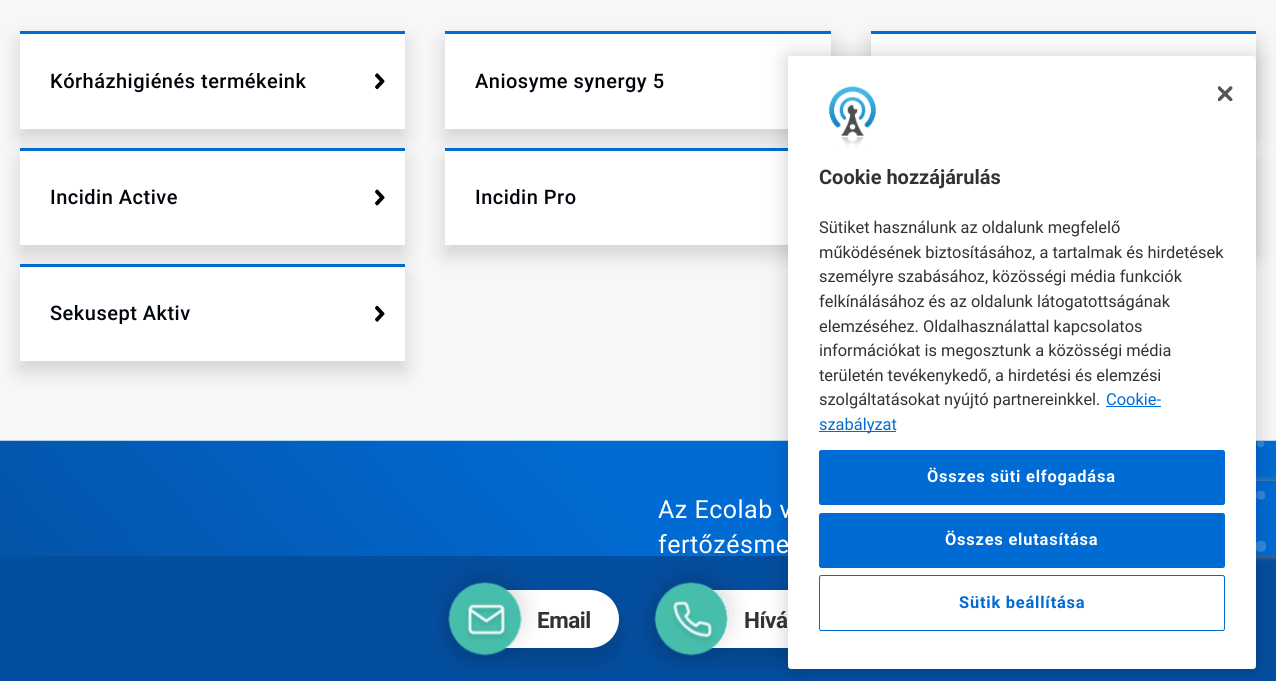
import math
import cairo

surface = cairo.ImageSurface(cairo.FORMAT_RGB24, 1276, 681)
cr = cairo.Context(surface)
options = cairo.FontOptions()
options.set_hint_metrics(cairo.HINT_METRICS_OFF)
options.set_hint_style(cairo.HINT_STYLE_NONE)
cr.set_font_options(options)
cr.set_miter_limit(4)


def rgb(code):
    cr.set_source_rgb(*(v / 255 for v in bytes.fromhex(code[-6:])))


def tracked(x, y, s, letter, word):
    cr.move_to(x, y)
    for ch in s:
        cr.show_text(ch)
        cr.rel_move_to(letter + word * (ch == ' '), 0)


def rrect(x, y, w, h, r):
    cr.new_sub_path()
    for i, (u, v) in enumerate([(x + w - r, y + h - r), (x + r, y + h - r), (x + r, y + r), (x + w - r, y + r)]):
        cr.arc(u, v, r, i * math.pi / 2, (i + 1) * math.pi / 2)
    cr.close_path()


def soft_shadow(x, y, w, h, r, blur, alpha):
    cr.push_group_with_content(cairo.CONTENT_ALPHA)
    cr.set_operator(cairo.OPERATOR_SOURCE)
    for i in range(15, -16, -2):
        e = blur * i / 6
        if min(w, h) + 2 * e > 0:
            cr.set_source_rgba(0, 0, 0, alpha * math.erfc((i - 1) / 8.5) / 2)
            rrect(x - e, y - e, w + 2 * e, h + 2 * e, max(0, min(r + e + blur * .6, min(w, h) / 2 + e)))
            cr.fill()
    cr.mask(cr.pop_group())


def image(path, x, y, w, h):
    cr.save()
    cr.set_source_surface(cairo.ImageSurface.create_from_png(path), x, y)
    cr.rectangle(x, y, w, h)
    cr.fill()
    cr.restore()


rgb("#f7f7f7")
cr.paint()
rgb("#000000")
soft_shadow(20, 41, 385, 98, 0, 10, 0.15)
rgb("#ffffff")
cr.rectangle(20, 34, 385, 95)
cr.fill()
rgb("#006bd3")
cr.rectangle(20, 31, 385, 3)
cr.fill()
image("img/1.png", 375, 73, 10, 17)
rgb("#000000")
soft_shadow(20, 158, 385, 97, 0, 10, 0.15)
rgb("#ffffff")
cr.rectangle(20, 151, 385, 94)
cr.fill()
rgb("#006bd3")
cr.rectangle(20, 148, 385, 3)
cr.fill()
image("img/2.png", 375, 189, 10, 17)
rgb("#000000")
soft_shadow(20, 274, 385, 97, 0, 10, 0.15)
rgb("#ffffff")
cr.rectangle(20, 267, 385, 94)
cr.fill()
rgb("#006bd3")
cr.rectangle(20, 264, 385, 3)
cr.fill()
image("img/3.png", 375, 305, 10, 17)
rgb("#000000")
soft_shadow(445, 41, 386, 98, 0, 10, 0.15)
rgb("#ffffff")
cr.rectangle(445, 34, 386, 95)
cr.fill()
rgb("#006bd3")
cr.rectangle(445, 31, 386, 3)
cr.fill()
rgb("#000000")
soft_shadow(445, 158, 386, 97, 0, 10, 0.15)
rgb("#ffffff")
cr.rectangle(445, 151, 343, 94)
cr.fill()
rgb("#006bd3")
cr.rectangle(445, 148, 343, 3)
cr.fill()
rgb("#000000")
soft_shadow(871, 41, 385, 98, 0, 10, 0.15)
rgb("#ffffff")
cr.rectangle(871, 34, 385, 25)
cr.fill()
rgb("#006bd3")
cr.rectangle(871, 31, 385, 3)
cr.fill()
rgb("#000000")
soft_shadow(871, 158, 385, 97, 0, 10, 0.15)
image("img/4.png", 0, 440, 1276, 116)
rgb("#044ea0")
cr.rectangle(0, 556, 1276, 125)
cr.fill()
rgb("#000000")
soft_shadow(450, 604, 169, 57, 28.5, 12.5, 0.16)
rgb("#ffffff")
rrect(450, 590, 169, 58, 29)
cr.fill()
cr.save()
cr.set_fill_rule(cairo.FILL_RULE_EVEN_ODD)
cr.new_path()
cr.move_to(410, 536)
cr.line_to(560, 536)
cr.line_to(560, 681)
cr.line_to(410, 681)
cr.close_path()
cr.move_to(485, 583)
cr.curve_to(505, 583, 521, 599, 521, 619)
cr.curve_to(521, 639, 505, 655, 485, 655)
cr.curve_to(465, 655, 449, 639, 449, 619)
cr.curve_to(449, 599, 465, 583, 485, 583)
cr.close_path()
cr.clip()
rgb("#000000")
soft_shadow(449, 575, 72, 73, 36, 12.5, 0.15)
cr.restore()
image("img/5.png", 448, 582, 74, 74)
rgb("#000000")
soft_shadow(656, 604, 170, 57, 28.5, 12.5, 0.16)
rgb("#ffffff")
rrect(656, 590, 170, 58, 29)
cr.fill()
cr.save()
cr.set_fill_rule(cairo.FILL_RULE_EVEN_ODD)
cr.new_path()
cr.move_to(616, 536)
cr.line_to(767, 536)
cr.line_to(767, 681)
cr.line_to(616, 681)
cr.close_path()
cr.move_to(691, 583)
cr.line_to(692, 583)
cr.curve_to(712, 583, 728, 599, 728, 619)
cr.curve_to(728, 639, 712, 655, 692, 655)
cr.line_to(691, 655)
cr.curve_to(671, 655, 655, 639, 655, 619)
cr.curve_to(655, 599, 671, 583, 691, 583)
cr.close_path()
cr.clip()
rgb("#000000")
soft_shadow(655, 575, 73, 73, 36.5, 12.5, 0.15)
cr.restore()
image("img/6.png", 654, 582, 74, 74)
rgb("#000000")
soft_shadow(788, 56, 468, 613, 3, 11, 0.2)
cr.save()
cr.set_fill_rule(cairo.FILL_RULE_EVEN_ODD)
cr.new_path()
cr.move_to(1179, 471)
cr.line_to(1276, 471)
cr.line_to(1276, 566)
cr.line_to(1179, 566)
cr.close_path()
cr.move_to(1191.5, 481)
cr.line_to(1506.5, 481)
cr.curve_to(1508, 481, 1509, 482, 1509, 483.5)
cr.line_to(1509, 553.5)
cr.curve_to(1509, 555, 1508, 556, 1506.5, 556)
cr.line_to(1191.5, 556)
cr.curve_to(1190, 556, 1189, 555, 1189, 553.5)
cr.line_to(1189, 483.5)
cr.curve_to(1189, 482, 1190, 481, 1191.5, 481)
cr.close_path()
cr.clip()
rgb("#808080")
soft_shadow(1189, 481, 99, 75, 2.5, 3, 1)
cr.restore()
rgb("#ffffff")
rrect(788, 56, 468, 613, 3)
cr.fill()
image("img/7.png", 1218, 86, 15, 15)
image("img/8.png", 829, 86, 47, 62)
rgb("#006bd3")
cr.rectangle(1106, 406, 55, 1)
cr.fill()
cr.rectangle(819, 431, 77, 1)
cr.fill()
rrect(819.5, 450.5, 405, 54, 2)
cr.fill_preserve()
cr.set_line_width(1)
cr.stroke()
rrect(819.5, 513.5, 405, 54, 2)
cr.fill_preserve()
cr.stroke()
rrect(819.5, 575.5, 405, 55, 2)
cr.stroke()
cr.select_font_face("Roboto Medium")
cr.set_font_size(20)
rgb("#00050b")
for x, y, s in [
    (50, 88, "Kórházhigiénés termékeink"),
    (50, 204, "Incidin Active"),
    (50, 320, "Sekusept Aktiv"),
    (475, 88, "Aniosyme synergy 5"),
    (475, 204, "Incidin Pro"),
]:
    tracked(x, y, s, 0.5, 0)
cr.select_font_face("Roboto")
cr.set_font_size(25)
rgb("#ffffff")
tracked(658, 518, "Az Ecolab v", 0.5, 0)
tracked(658, 553, "fertőzésme", 0.5, 0)
cr.select_font_face("Roboto", cairo.FONT_SLANT_NORMAL, cairo.FONT_WEIGHT_BOLD)
cr.set_font_size(22.5)
rgb("#313233")
tracked(537, 628, "Email", -0.5, 0)
tracked(744, 628, "Hívá", -0.5, 0)
cr.set_font_size(20)
cr.move_to(819, 184)
cr.show_text("Cookie hozzájárulás")
cr.select_font_face("Roboto")
cr.set_font_size(16.4)
for x, y, s in [
    (819, 233, "Sütiket használunk az oldalunk megfelelő"),
    (819, 258, "működésének biztosításához, a tartalmak és hirdetések"),
    (819, 282, "személyre szabásához, közösségi média funkciók"),
    (819, 307, "felkínálásához és az oldalunk látogatottságának"),
    (819, 332, "elemzéséhez. Oldalhasználattal kapcsolatos"),
    (819, 356, "információkat is megosztunk a közösségi média"),
    (819, 381, "területén tevékenykedő, a hirdetési és elemzési"),
    (819, 405, "szolgáltatásokat nyújtó partnereinkkel."),
]:
    cr.move_to(x, y)
    cr.show_text(s)
rgb("#006bd3")
cr.move_to(1106, 405)
cr.show_text("Cookie-")
cr.move_to(819, 430)
cr.show_text("szabályzat")
cr.select_font_face("Roboto", cairo.FONT_SLANT_NORMAL, cairo.FONT_WEIGHT_BOLD)
rgb("#ffffff")
tracked(927, 482, "Összes süti elfogadása", 0.8, 0)
tracked(945, 545, "Összes elutasítása", 0.8, 0)
rgb("#006bd3")
tracked(959, 608, "Sütik beállítása", 0.8, 0)
surface.write_to_png("page.png")
